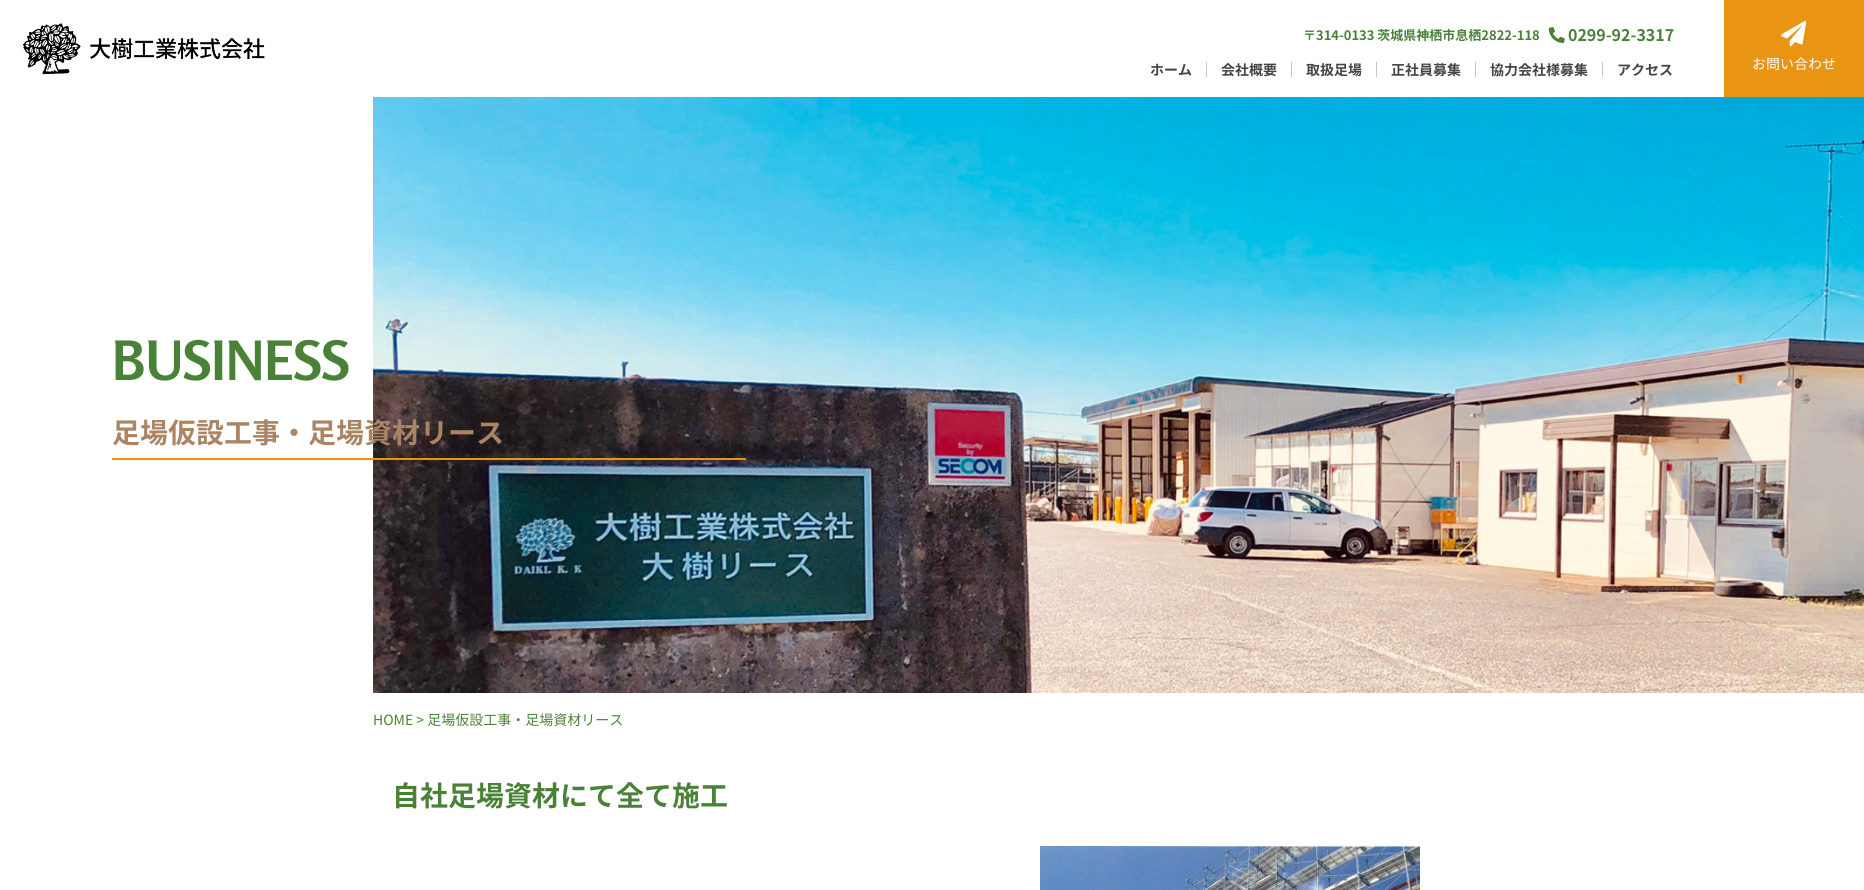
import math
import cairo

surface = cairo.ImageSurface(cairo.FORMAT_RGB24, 1864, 890)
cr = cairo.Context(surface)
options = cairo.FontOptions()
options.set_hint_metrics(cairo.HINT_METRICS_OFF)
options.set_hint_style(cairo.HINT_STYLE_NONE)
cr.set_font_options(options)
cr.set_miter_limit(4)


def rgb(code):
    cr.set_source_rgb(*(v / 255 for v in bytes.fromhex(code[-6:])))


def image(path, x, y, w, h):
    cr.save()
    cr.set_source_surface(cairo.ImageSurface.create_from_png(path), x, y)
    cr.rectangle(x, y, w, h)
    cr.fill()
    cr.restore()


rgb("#ffffff")
cr.paint()
image("img/1.png", 22, 23, 243, 52)
image("img/2.png", 1548, 27, 17, 16)
for x, y, w, h, color in [
    (1206, 62, 1, 15, "#c5c5c5"),
    (1291, 62, 1, 15, "#c5c5c5"),
    (1376, 62, 1, 15, "#c5c5c5"),
    (1475, 62, 1, 15, "#c5c5c5"),
    (1602, 62, 1, 15, "#c5c5c5"),
    (1724, 0, 140, 97, "#e99413"),
]:
    rgb(color)
    cr.rectangle(x, y, w, h)
    cr.fill()
image("img/3.png", 1781, 21, 26, 26)
image("img/4.png", 373, 97, 1491, 596)
cr.rectangle(112, 458, 634, 2)
cr.fill()
image("img/5.png", 1040, 846, 380, 44)
cr.select_font_face("Noto Sans JP", cairo.FONT_SLANT_NORMAL, cairo.FONT_WEIGHT_BOLD)
cr.set_font_size(13)
rgb("#498237")
cr.move_to(1303, 40)
cr.show_text("〒314-0133 茨城県神栖市息栖2822-118")
cr.set_font_size(16)
cr.move_to(1568, 41)
cr.show_text("0299-92-3317")
cr.set_font_size(14)
rgb("#444444")
for x, y, s in [
    (1150, 75, "ホーム"),
    (1221, 75, "会社概要"),
    (1306, 75, "取扱足場"),
    (1391, 75, "正社員募集"),
    (1490, 75, "協力会社様募集"),
    (1617, 75, "アクセス"),
]:
    cr.move_to(x, y)
    cr.show_text(s)
cr.select_font_face("Noto Sans JP")
rgb("#ffffff")
cr.move_to(1752, 69)
cr.show_text("お問い合わせ")
cr.select_font_face("Rosario", cairo.FONT_SLANT_NORMAL, cairo.FONT_WEIGHT_BOLD)
cr.set_font_size(54)
rgb("#498237")
cr.move_to(112, 380)
cr.show_text("BUSINESS")
cr.select_font_face("Noto Sans JP", cairo.FONT_SLANT_NORMAL, cairo.FONT_WEIGHT_BOLD)
cr.set_font_size(28)
rgb("#ab8563")
cr.move_to(112, 443)
cr.show_text("足場仮設工事・足場資材リース")
cr.select_font_face("Noto Sans JP")
cr.set_font_size(14)
rgb("#498237")
cr.move_to(373, 725)
cr.show_text("HOME > 足場仮設工事・足場資材リース")
cr.select_font_face("Noto Sans JP", cairo.FONT_SLANT_NORMAL, cairo.FONT_WEIGHT_BOLD)
cr.set_font_size(28)
cr.move_to(392, 806)
cr.show_text("自社足場資材にて全て施工")
surface.write_to_png("page.png")
